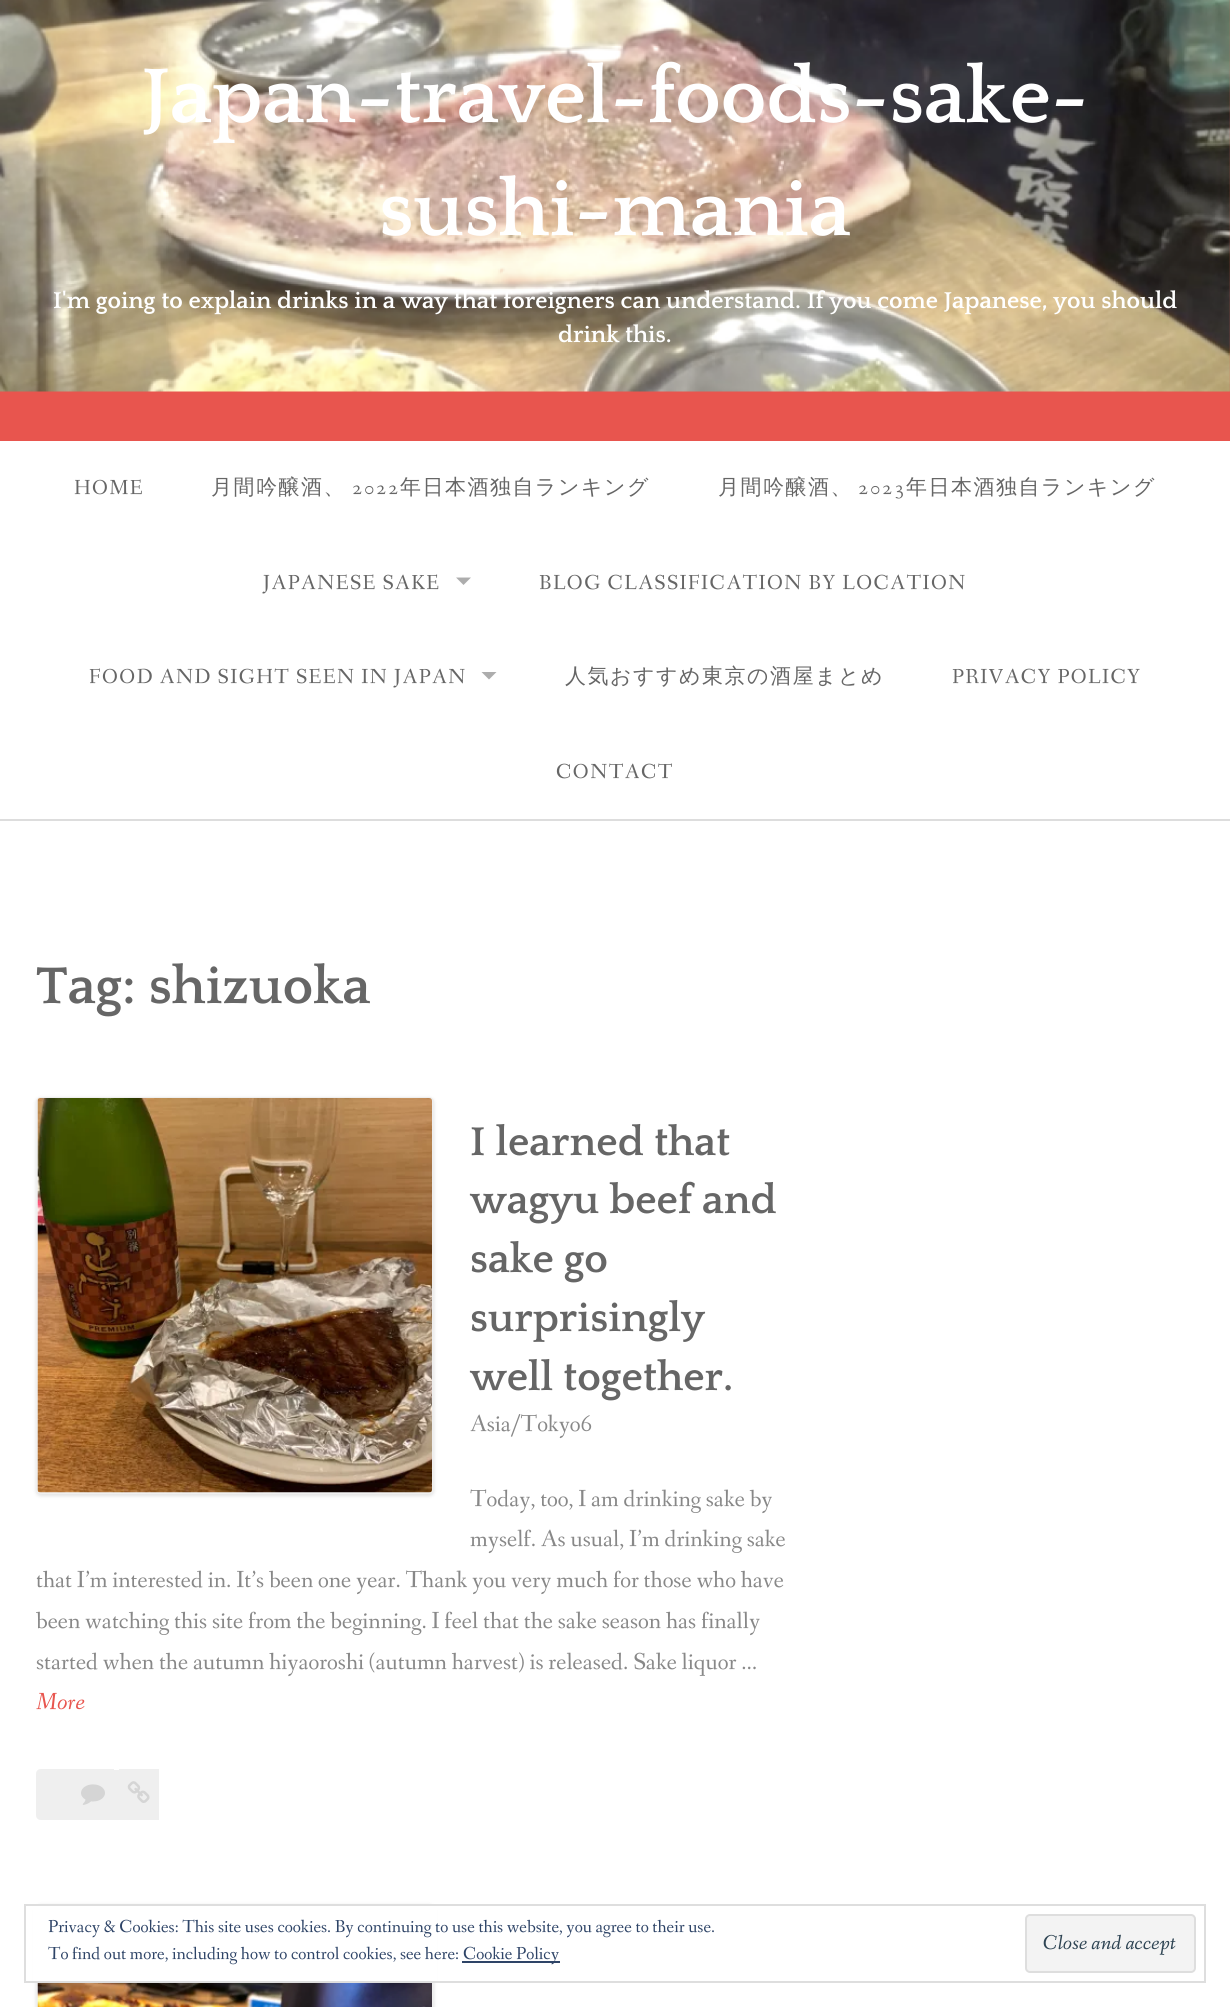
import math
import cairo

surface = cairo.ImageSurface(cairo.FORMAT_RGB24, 1230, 2007)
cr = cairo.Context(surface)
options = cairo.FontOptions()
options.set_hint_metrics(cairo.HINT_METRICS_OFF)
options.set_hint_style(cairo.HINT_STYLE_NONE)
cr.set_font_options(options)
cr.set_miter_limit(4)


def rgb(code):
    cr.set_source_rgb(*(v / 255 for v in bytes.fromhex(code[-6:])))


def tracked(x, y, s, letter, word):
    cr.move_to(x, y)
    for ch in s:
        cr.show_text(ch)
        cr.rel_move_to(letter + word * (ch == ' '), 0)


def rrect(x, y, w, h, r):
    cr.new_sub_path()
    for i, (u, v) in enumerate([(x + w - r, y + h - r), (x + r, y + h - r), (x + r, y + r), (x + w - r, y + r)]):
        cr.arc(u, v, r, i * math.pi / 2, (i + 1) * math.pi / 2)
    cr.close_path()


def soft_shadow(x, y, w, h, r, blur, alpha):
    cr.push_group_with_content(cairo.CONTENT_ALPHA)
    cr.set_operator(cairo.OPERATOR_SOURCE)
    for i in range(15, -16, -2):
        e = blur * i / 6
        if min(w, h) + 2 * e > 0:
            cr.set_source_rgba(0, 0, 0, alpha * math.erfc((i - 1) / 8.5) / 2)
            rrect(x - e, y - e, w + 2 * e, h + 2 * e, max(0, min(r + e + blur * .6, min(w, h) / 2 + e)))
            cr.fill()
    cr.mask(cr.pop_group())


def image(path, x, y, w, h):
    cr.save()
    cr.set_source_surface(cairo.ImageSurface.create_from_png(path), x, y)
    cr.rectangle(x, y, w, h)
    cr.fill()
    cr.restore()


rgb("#ffffff")
cr.paint()
rgb("#e8554e")
cr.rectangle(0, 0, 1230, 441)
cr.fill()
image("img/1.png", 0, 0, 1230, 392)
rgb("#dddddd")
cr.rectangle(0, 819, 1230, 2)
cr.fill()
rgb("#adadad")
cr.new_path()
cr.move_to(456, 577.5)
cr.line_to(471, 577.5)
cr.line_to(463.5, 585)
cr.close_path()
cr.fill()
cr.new_path()
cr.move_to(481.5, 672)
cr.line_to(496.5, 672)
cr.line_to(489, 679.5)
cr.close_path()
cr.fill()
rgb("#000000")
soft_shadow(36, 1098, 398, 398, 5, 2, 0.12)
rrect(37, 1098, 396, 395, 4)
rgb("#efefef")
cr.stroke()
image("img/2.png", 37, 1098, 395, 395)
cr.new_path()
cr.move_to(41, 1769)
cr.line_to(114, 1769)
cr.line_to(114, 1820)
cr.line_to(41, 1820)
cr.curve_to(38, 1820, 36, 1818, 36, 1815)
cr.line_to(36, 1774)
cr.curve_to(36, 1771, 38, 1769, 41, 1769)
cr.close_path()
cr.fill()
cr.rectangle(114, 1770, 5, 50)
cr.fill()
cr.rectangle(119, 1769, 40, 51)
cr.fill()
image("img/3.png", 81, 1784, 24, 21)
image("img/4.png", 127, 1781, 23, 22)
rgb("#000000")
soft_shadow(36, 1905, 398, 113, 5, 2, 0.12)
cr.rectangle(37, 1905, 396, 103)
rgb("#efefef")
cr.stroke()
image("img/5.png", 37, 1983, 395, 24)
rgb("#ffffff")
cr.rectangle(33, 1906, 404, 75)
cr.fill()
cr.rectangle(25, 1905, 1180, 77)
rgb("#dedede")
cr.stroke()
rgb("#2e4467")
cr.rectangle(462, 1961, 98, 2)
cr.fill()
rgb("#f3f3f3")
rrect(1026, 1915, 169, 57, 4)
cr.fill_preserve()
rgb("#dedede")
cr.stroke()
cr.select_font_face("Quattrocento", cairo.FONT_SLANT_NORMAL, cairo.FONT_WEIGHT_BOLD)
cr.set_font_size(81)
rgb("#ffffff")
cr.move_to(142, 122)
cr.show_text("Japan-travel-foods-sake-")
cr.move_to(379, 235)
cr.show_text("sushi-mania")
cr.set_font_size(24)
cr.move_to(53, 308)
cr.show_text("I'm going to explain drinks in a way that foreigners can understand. If you come Japanese, you should")
cr.move_to(558, 342)
cr.show_text("drink this.")
cr.select_font_face("Fanwood Text")
cr.set_font_size(21)
rgb("#666666")
tracked(74, 494, "HOME", 1.5, 0)
cr.select_font_face("WenQuanYi Zen Hei Medium")
tracked(211, 494, "月間吟醸酒、", 1.5, 0)
cr.select_font_face("Fanwood Text")
tracked(352, 494, "2022", 1.5, 0)
cr.select_font_face("WenQuanYi Zen Hei Medium")
tracked(400, 494, "年日本酒独自ランキング", 1.5, 0)
tracked(718, 494, "月間吟醸酒、", 1.5, 0)
cr.select_font_face("Fanwood Text")
tracked(858, 494, "2023", 1.5, 0)
cr.select_font_face("WenQuanYi Zen Hei Medium")
tracked(906, 494, "年日本酒独自ランキング", 1.5, 0)
cr.select_font_face("Fanwood Text")
for x, y, s in [
    (263, 589, "JAPANESE SAKE"),
    (539, 589, "BLOG CLASSIFICATION BY LOCATION"),
    (89, 683, "FOOD AND SIGHT SEEN IN JAPAN"),
]:
    tracked(x, y, s, 1.5, 0)
cr.select_font_face("WenQuanYi Zen Hei Medium")
tracked(565, 683, "人気おすすめ東京の酒屋まとめ", 1.5, 0)
cr.select_font_face("Fanwood Text")
tracked(952, 683, "PRIVACY POLICY", 1.5, 0)
tracked(556, 778, "CONTACT", 1.5, 0)
cr.select_font_face("Quattrocento", cairo.FONT_SLANT_NORMAL, cairo.FONT_WEIGHT_BOLD)
cr.set_font_size(54)
cr.move_to(36, 1003)
cr.show_text("Tag: shizuoka")
cr.set_font_size(42)
for x, y, s in [
    (470, 1155, "I learned that"),
    (470, 1213, "wagyu beef and"),
    (470, 1272, "sake go"),
    (470, 1331, "surprisingly"),
    (470, 1390, "well together."),
]:
    cr.move_to(x, y)
    cr.show_text(s)
cr.select_font_face("Fanwood Text")
cr.set_font_size(24)
rgb("#888888")
for x, y, s in [
    (470, 1431, "Asia/Tokyo6"),
    (470, 1506, "Today, too, I am drinking sake by"),
    (470, 1546, "myself. As usual, I’m drinking sake"),
    (36, 1587, "that I’m interested in. It’s been one year. Thank you very much for those who have"),
    (36, 1628, "been watching this site from the beginning. I feel that the sake season has finally"),
    (36, 1669, "started when the autumn hiyaoroshi (autumn harvest) is released. Sake liquor …"),
]:
    cr.move_to(x, y)
    cr.show_text(s)
cr.select_font_face("Fanwood Text", cairo.FONT_SLANT_ITALIC)
rgb("#e8554e")
cr.move_to(36, 1709)
cr.show_text("More")
cr.select_font_face("Fanwood Text")
cr.set_font_size(18)
rgb("#2e4467")
for x, y, s in [
    (48, 1932, "Privacy & Cookies: This site uses cookies. By continuing to use this website, you agree to their use."),
    (48, 1959, "To find out more, including how to control cookies, see here:"),
    (463, 1959, "Cookie Policy"),
]:
    cr.move_to(x, y)
    cr.show_text(s)
cr.select_font_face("Fanwood Text", cairo.FONT_SLANT_ITALIC)
cr.set_font_size(21)
rgb("#2e4453")
cr.move_to(1043, 1949)
cr.show_text("Close and accept")
surface.write_to_png("page.png")
